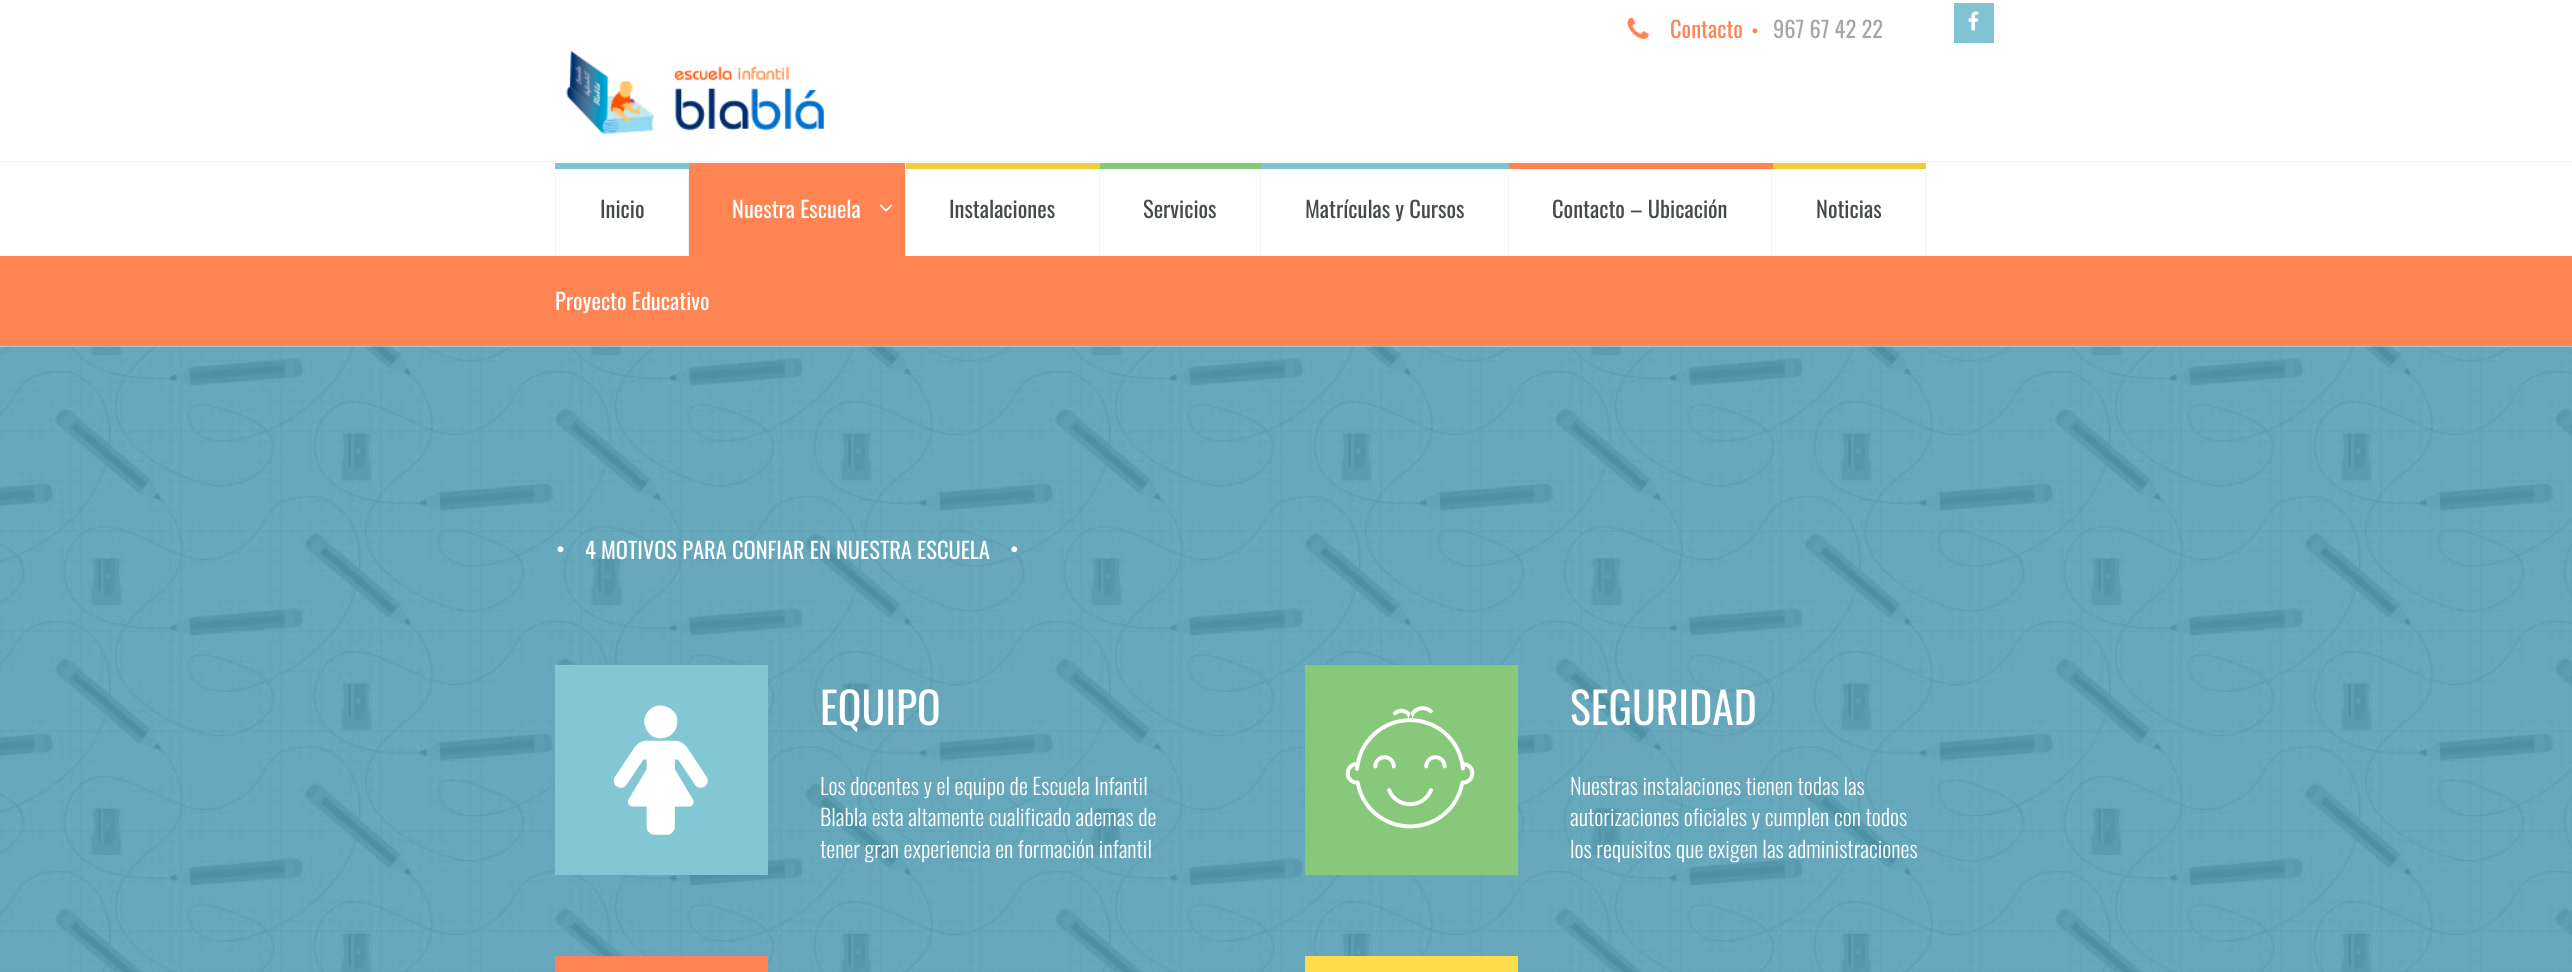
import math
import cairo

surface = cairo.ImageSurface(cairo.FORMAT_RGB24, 2572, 972)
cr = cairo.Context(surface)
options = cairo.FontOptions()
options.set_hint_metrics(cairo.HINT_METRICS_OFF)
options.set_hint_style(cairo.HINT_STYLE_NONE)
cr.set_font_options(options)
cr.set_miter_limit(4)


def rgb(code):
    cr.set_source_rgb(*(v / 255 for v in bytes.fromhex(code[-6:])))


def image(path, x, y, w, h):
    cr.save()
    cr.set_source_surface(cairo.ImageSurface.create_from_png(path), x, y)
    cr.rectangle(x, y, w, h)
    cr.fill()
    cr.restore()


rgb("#ffffff")
cr.paint()
image("img/1.png", 1627, 17, 22, 22)
image("img/2.png", 1752, 28, 6, 6)
rgb("#80c3d2")
cr.rectangle(1954, 3, 40, 40)
cr.fill()
image("img/3.png", 1968, 11, 11, 20)
rgb("#f4f4f4")
cr.rectangle(0, 161, 2572, 1)
cr.fill()
image("img/4.png", 566, 51, 258, 83)
for x, y, w, h, color in [
    (688, 163, 1, 93, "#f4f4f4"),
    (555, 163, 1, 93, "#f4f4f4"),
    (555, 163, 134, 6, "#80c3d2"),
    (689, 163, 216, 93, "#ff8454"),
    (905, 163, 1, 93, "#f4f4f4"),
]:
    rgb(color)
    cr.rectangle(x, y, w, h)
    cr.fill()
image("img/5.png", 879, 204, 14, 8)
for x, y, w, h, color in [
    (1099, 163, 1, 93, "#f4f4f4"),
    (906, 163, 194, 6, "#f0cd3a"),
    (1260, 163, 1, 93, "#f4f4f4"),
    (1100, 163, 161, 6, "#88c87b"),
    (1508, 163, 1, 93, "#f4f4f4"),
    (1261, 163, 248, 6, "#80c3d2"),
    (1771, 163, 1, 93, "#f4f4f4"),
    (1509, 163, 264, 6, "#ff8454"),
    (1925, 163, 1, 93, "#f4f4f4"),
    (1773, 163, 153, 6, "#f0cd3a"),
    (0, 256, 2572, 90, "#ff8454"),
]:
    rgb(color)
    cr.rectangle(x, y, w, h)
    cr.fill()
image("img/6.png", 0, 346, 2572, 626)
image("img/7.png", 557, 546, 7, 7)
image("img/8.png", 1011, 546, 7, 7)
rgb("#83c7d5")
cr.rectangle(555, 665, 213, 210)
cr.fill()
image("img/9.png", 613, 705, 95, 130)
rgb("#ff8454")
cr.rectangle(555, 956, 213, 16)
cr.fill()
rgb("#88c87b")
cr.rectangle(1305, 665, 213, 210)
cr.fill()
image("img/10.png", 1345, 706, 130, 123)
rgb("#ffdc4a")
cr.rectangle(1305, 956, 213, 16)
cr.fill()
cr.select_font_face("Oswald")
cr.set_font_size(22.5)
rgb("#ff8454")
cr.move_to(1670, 38)
cr.show_text("Contacto")
rgb("#a6a6a6")
cr.move_to(1773, 38)
cr.show_text("967 67 42 22")
rgb("#454a4c")
cr.move_to(600, 218)
cr.show_text("Inicio")
rgb("#ffffff")
cr.move_to(732, 218)
cr.show_text("Nuestra Escuela")
rgb("#454a4c")
for x, y, s in [
    (949, 218, "Instalaciones"),
    (1143, 218, "Servicios"),
    (1305, 218, "Matrículas y Cursos"),
    (1552, 218, "Contacto – Ubicación"),
    (1816, 218, "Noticias"),
]:
    cr.move_to(x, y)
    cr.show_text(s)
rgb("#ffffff")
cr.move_to(555, 310)
cr.show_text("Proyecto Educativo")
cr.move_to(585, 559)
cr.show_text("4 MOTIVOS PARA CONFIAR EN NUESTRA ESCUELA")
cr.set_font_size(43.75)
cr.move_to(820, 725)
cr.show_text("EQUIPO")
cr.select_font_face("Oswald Light")
cr.set_font_size(22.5)
for x, y, s in [
    (820, 795, "Los docentes y el equipo de Escuela Infantil"),
    (820, 826, "Blabla esta altamente cualificado ademas de"),
    (820, 858, "tener gran experiencia en formación infantil"),
]:
    cr.move_to(x, y)
    cr.show_text(s)
cr.select_font_face("Oswald")
cr.set_font_size(43.75)
cr.move_to(1570, 725)
cr.show_text("SEGURIDAD")
cr.select_font_face("Oswald Light")
cr.set_font_size(22.5)
for x, y, s in [
    (1570, 795, "Nuestras instalaciones tienen todas las"),
    (1570, 826, "autorizaciones oficiales y cumplen con todos"),
    (1570, 858, "los requisitos que exigen las administraciones"),
]:
    cr.move_to(x, y)
    cr.show_text(s)
surface.write_to_png("page.png")
